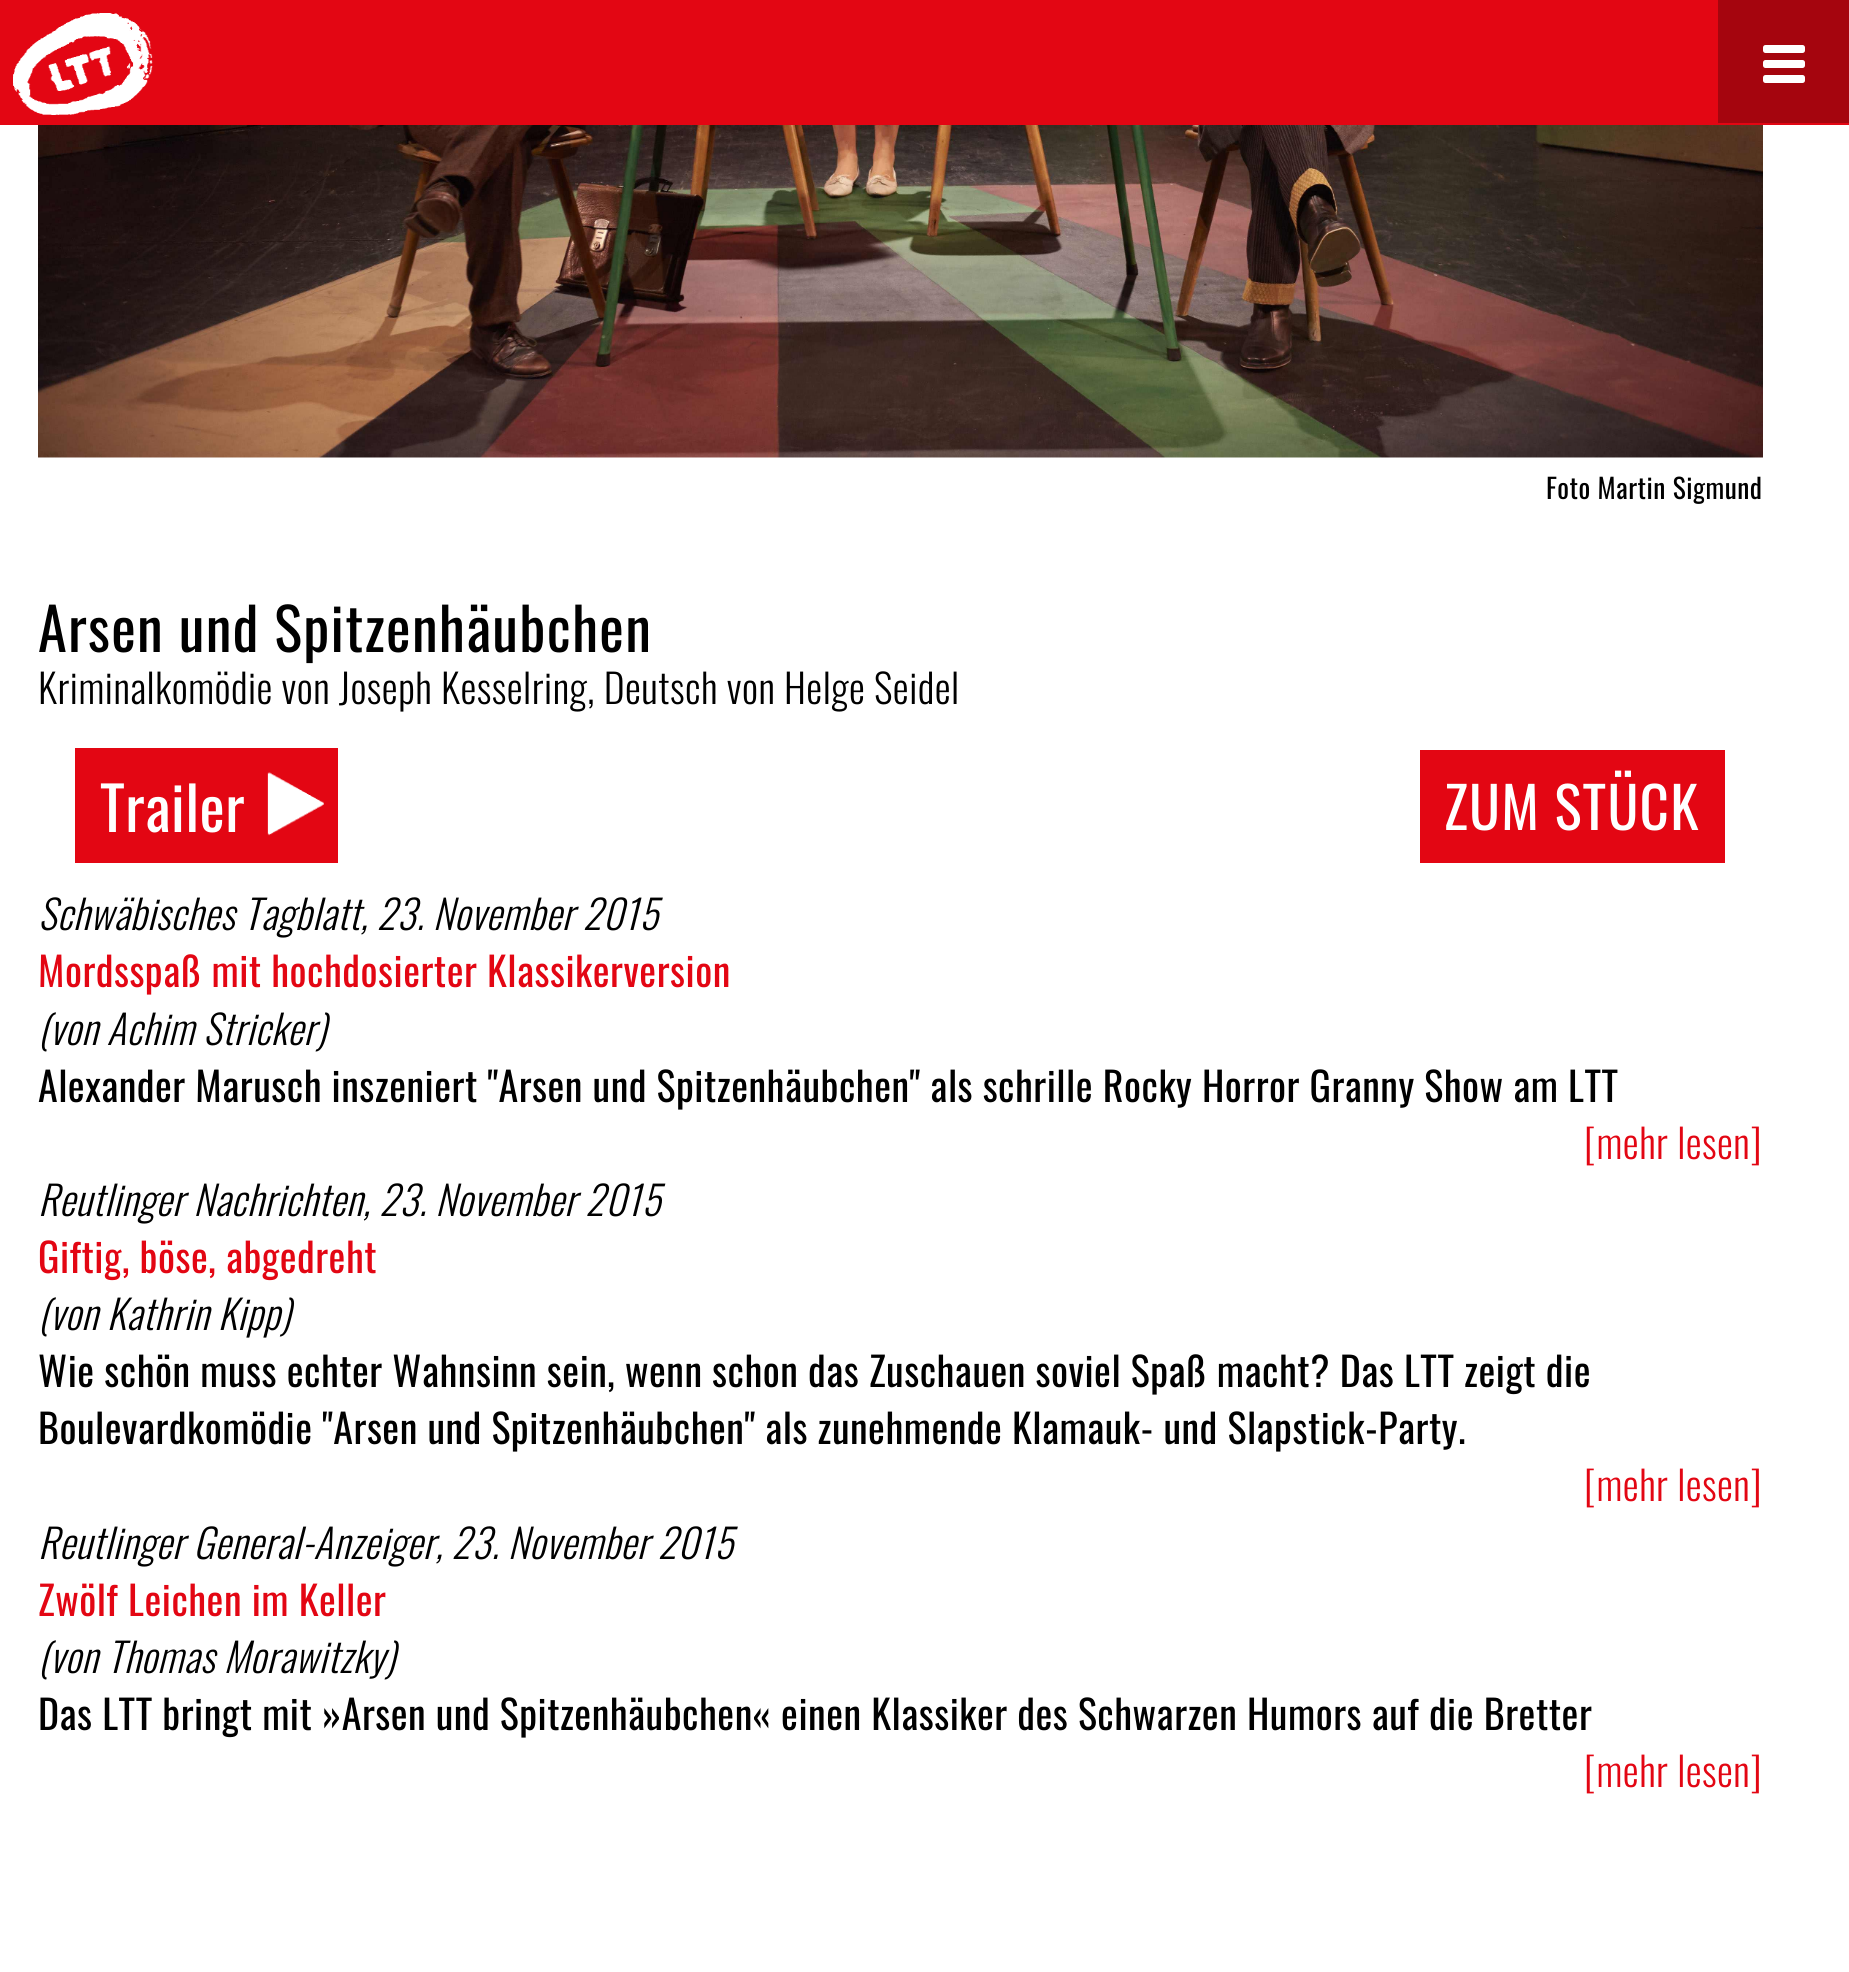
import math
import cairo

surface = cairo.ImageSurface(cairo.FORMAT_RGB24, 1849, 1972)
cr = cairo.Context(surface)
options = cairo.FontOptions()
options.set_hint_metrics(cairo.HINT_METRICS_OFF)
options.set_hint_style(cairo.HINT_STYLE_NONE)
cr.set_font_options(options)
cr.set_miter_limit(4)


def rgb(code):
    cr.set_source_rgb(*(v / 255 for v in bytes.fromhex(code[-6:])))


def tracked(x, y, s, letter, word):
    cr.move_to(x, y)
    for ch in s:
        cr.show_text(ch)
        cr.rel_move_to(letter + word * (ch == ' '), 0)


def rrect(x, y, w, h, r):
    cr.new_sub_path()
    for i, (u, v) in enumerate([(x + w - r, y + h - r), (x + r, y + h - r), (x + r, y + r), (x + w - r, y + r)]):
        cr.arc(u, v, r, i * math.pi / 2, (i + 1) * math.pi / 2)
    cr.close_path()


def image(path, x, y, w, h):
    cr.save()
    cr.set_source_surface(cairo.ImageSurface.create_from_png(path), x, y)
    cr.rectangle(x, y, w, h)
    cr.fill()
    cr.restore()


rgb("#ffffff")
cr.paint()
rgb("#e30613")
cr.rectangle(0, 0, 1849, 125)
cr.fill()
image("img/1.png", 13, 13, 140, 102)
rgb("#a5050e")
cr.rectangle(1718, 0, 131, 123)
cr.fill()
rgb("#ffffff")
rrect(1763, 45, 42, 8, 2.5)
cr.fill()
rrect(1763, 60, 42, 8, 2.5)
cr.fill()
rrect(1763, 75, 42, 8, 2.5)
cr.fill()
image("img/2.png", 38, 125, 1725, 333)
rgb("#e30613")
cr.rectangle(75, 748, 263, 115)
cr.fill()
image("img/3.png", 267, 772, 57, 64)
cr.rectangle(1420, 750, 305, 113)
cr.fill()
cr.select_font_face("Oswald")
cr.set_font_size(27.5)
rgb("#000000")
tracked(1546, 499, "Foto Martin Sigmund", 0.5, 0)
cr.set_font_size(58.5)
tracked(38, 652, "Arsen und Spitzenhäubchen", 1.25, 0)
cr.select_font_face("Oswald Light")
cr.set_font_size(40)
tracked(38, 704, "Kriminalkomödie von Joseph Kesselring, Deutsch von Helge Seidel", 0.5, 0)
cr.select_font_face("Oswald")
cr.set_font_size(60)
rgb("#ffffff")
tracked(100, 832, "Trailer", 0.5, 0)
cr.set_font_size(57)
tracked(1444, 830, "ZUM STÜCK", 1.25, 0)
cr.select_font_face("Oswald Light", cairo.FONT_SLANT_ITALIC)
cr.set_font_size(40)
rgb("#000000")
tracked(38, 930, "Schwäbisches Tagblatt, 23. November 2015", 0.5, 0)
cr.select_font_face("Oswald")
rgb("#e30613")
tracked(38, 987, "Mordsspaß mit hochdosierter Klassikerversion", 0.5, 0)
cr.select_font_face("Oswald Light", cairo.FONT_SLANT_ITALIC)
rgb("#000000")
tracked(38, 1045, "(von Achim Stricker)", 0.5, 0)
cr.select_font_face("Oswald")
tracked(38, 1102, "Alexander Marusch inszeniert \"Arsen und Spitzenhäubchen\" als schrille Rocky Horror Granny Show am LTT", 0.5, 0)
cr.select_font_face("Oswald Light")
rgb("#e30613")
tracked(1584, 1159, "[mehr lesen]", 0.5, 0)
cr.select_font_face("Oswald Light", cairo.FONT_SLANT_ITALIC)
rgb("#000000")
tracked(38, 1216, "Reutlinger Nachrichten, 23. November 2015", 0.5, 0)
cr.select_font_face("Oswald")
rgb("#e30613")
tracked(38, 1273, "Giftig, böse, abgedreht", 0.5, 0)
cr.select_font_face("Oswald Light", cairo.FONT_SLANT_ITALIC)
rgb("#000000")
tracked(38, 1330, "(von Kathrin Kipp)", 0.5, 0)
cr.select_font_face("Oswald")
tracked(38, 1387, "Wie schön muss echter Wahnsinn sein, wenn schon das Zuschauen soviel Spaß macht? Das LTT zeigt die", 0.5, 0)
tracked(38, 1444, "Boulevardkomödie \"Arsen und Spitzenhäubchen\" als zunehmende Klamauk- und Slapstick-Party.", 0.5, 0)
cr.select_font_face("Oswald Light")
rgb("#e30613")
tracked(1584, 1501, "[mehr lesen]", 0.5, 0)
cr.select_font_face("Oswald Light", cairo.FONT_SLANT_ITALIC)
rgb("#000000")
tracked(38, 1559, "Reutlinger General-Anzeiger, 23. November 2015", 0.5, 0)
cr.select_font_face("Oswald")
rgb("#e30613")
tracked(38, 1616, "Zwölf Leichen im Keller", 0.5, 0)
cr.select_font_face("Oswald Light", cairo.FONT_SLANT_ITALIC)
rgb("#000000")
tracked(38, 1673, "(von Thomas Morawitzky)", 0.5, 0)
cr.select_font_face("Oswald")
tracked(38, 1730, "Das LTT bringt mit »Arsen und Spitzenhäubchen« einen Klassiker des Schwarzen Humors auf die Bretter", 0.5, 0)
cr.select_font_face("Oswald Light")
rgb("#e30613")
tracked(1584, 1787, "[mehr lesen]", 0.5, 0)
surface.write_to_png("page.png")
